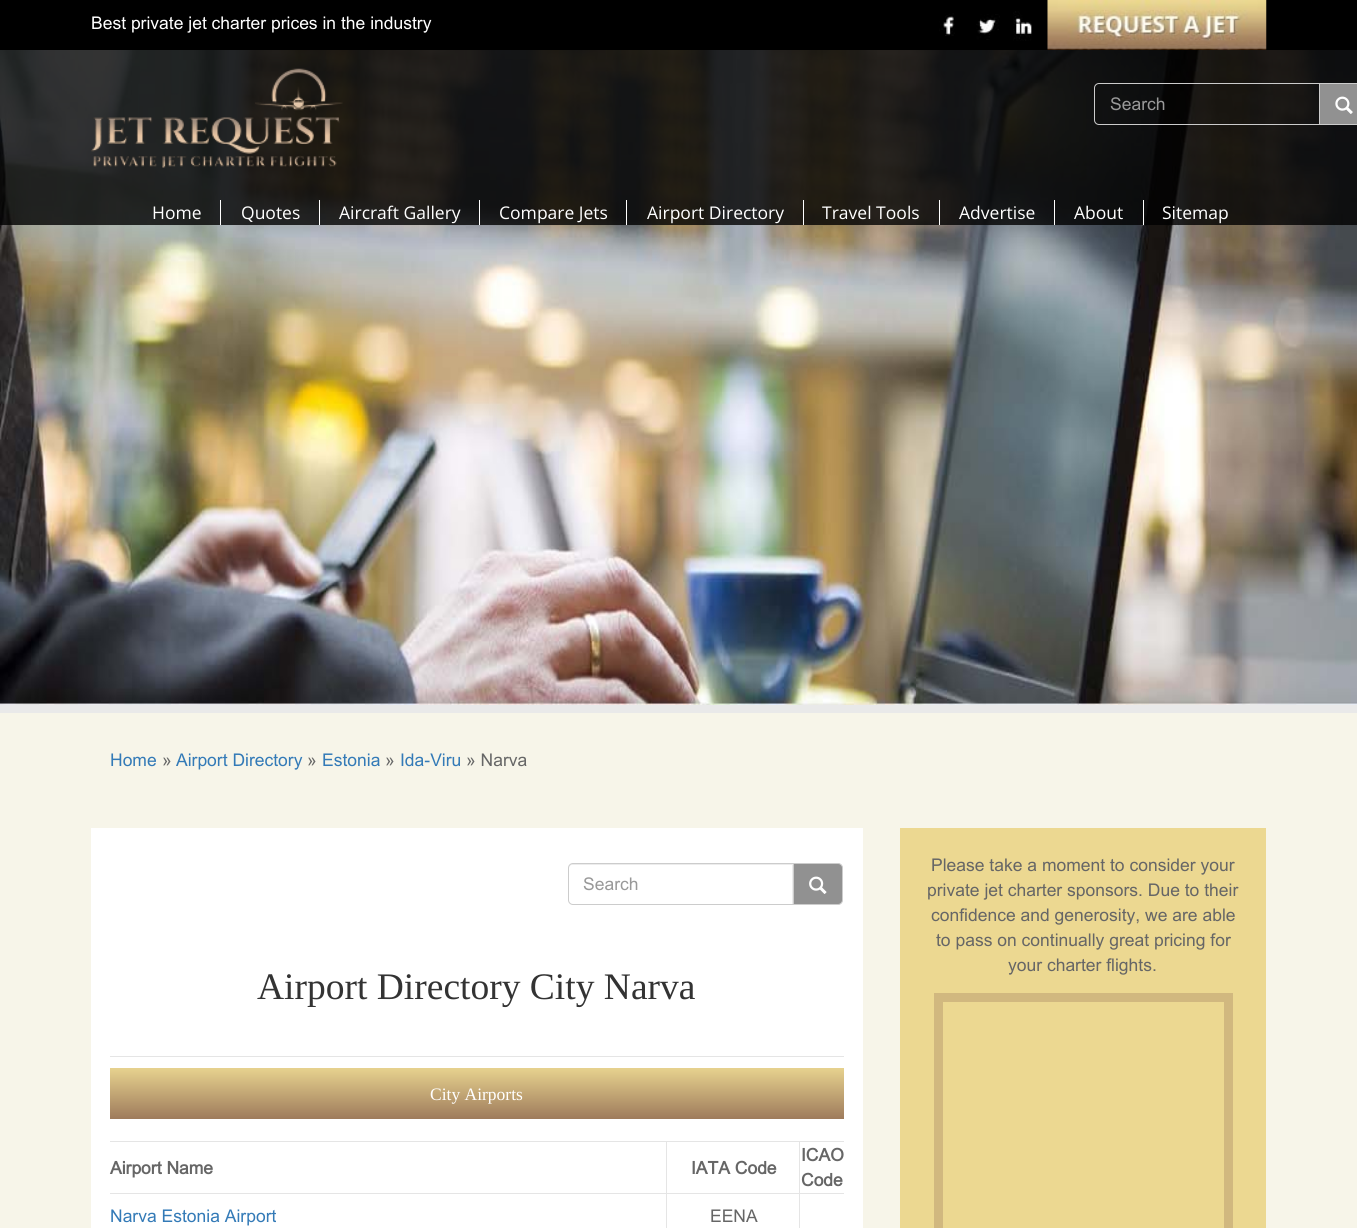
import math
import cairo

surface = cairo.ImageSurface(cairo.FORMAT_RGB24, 1357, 1228)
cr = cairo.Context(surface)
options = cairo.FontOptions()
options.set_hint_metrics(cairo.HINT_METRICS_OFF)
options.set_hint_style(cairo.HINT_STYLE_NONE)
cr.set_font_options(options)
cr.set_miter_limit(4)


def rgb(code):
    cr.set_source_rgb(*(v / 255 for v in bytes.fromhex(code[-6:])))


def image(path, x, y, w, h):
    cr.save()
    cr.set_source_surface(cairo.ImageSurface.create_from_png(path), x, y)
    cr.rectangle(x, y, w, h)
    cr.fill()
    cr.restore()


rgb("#f7f5e9")
cr.paint()
rgb("#000000")
cr.rectangle(0, 0, 1357, 50)
cr.fill()
image("img/1.png", 939, 13, 16, 23)
image("img/2.png", 976, 14, 24, 26)
image("img/3.png", 1013, 11, 19, 30)
image("img/4.png", 1047, 0, 220, 50)
image("img/7.png", 0, 50, 1357, 655)
cr.set_source_rgba(0, 0, 0, 0.8)
cr.rectangle(0, 50, 1357, 175)
cr.fill()
image("img/5.png", 91, 68, 252, 100)
rgb("#919191")
cr.rectangle(1319.5, 83.5, 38, 41)
cr.fill_preserve()
rgb("#cccccc")
cr.set_line_width(1)
cr.stroke()
cr.new_path()
cr.move_to(1099, 83.5)
cr.line_to(1319.5, 83.5)
cr.line_to(1319.5, 124.5)
cr.line_to(1099, 124.5)
cr.curve_to(1096.5, 124.5, 1094.5, 122.5, 1094.5, 120)
cr.line_to(1094.5, 88)
cr.curve_to(1094.5, 85.5, 1096.5, 83.5, 1099, 83.5)
cr.close_path()
cr.stroke()
image("img/6.png", 1335, 96, 18, 18)
for x, y, w, h, color in [
    (220, 200, 1, 25, "#ffffff"),
    (319, 200, 1, 25, "#ffffff"),
    (479, 200, 1, 25, "#ffffff"),
    (626, 200, 1, 25, "#ffffff"),
    (803, 200, 1, 25, "#ffffff"),
    (939, 200, 1, 25, "#ffffff"),
    (1054, 200, 1, 25, "#ffffff"),
    (1143, 200, 1, 25, "#ffffff"),
    (0, 705, 1357, 8, "#e9e9e9"),
    (91, 828, 772, 400, "#ffffff"),
]:
    rgb(color)
    cr.rectangle(x, y, w, h)
    cr.fill()
rgb("#ececec")
cr.new_path()
cr.move_to(572, 865)
cr.line_to(792, 865)
cr.line_to(792, 904)
cr.line_to(793, 904)
cr.line_to(793, 864)
cr.line_to(573, 864)
cr.curve_to(570, 864, 569, 866, 569, 869)
cr.curve_to(569, 867, 570, 865, 572, 865)
cr.close_path()
cr.fill()
rgb("#919191")
cr.new_path()
cr.move_to(793.5, 863.5)
cr.line_to(838, 863.5)
cr.curve_to(840.5, 863.5, 842.5, 865.5, 842.5, 868)
cr.line_to(842.5, 900)
cr.curve_to(842.5, 902.5, 840.5, 904.5, 838, 904.5)
cr.line_to(793.5, 904.5)
cr.close_path()
cr.fill_preserve()
rgb("#cccccc")
cr.stroke()
cr.new_path()
cr.move_to(573, 863.5)
cr.line_to(793.5, 863.5)
cr.line_to(793.5, 904.5)
cr.line_to(573, 904.5)
cr.curve_to(570.5, 904.5, 568.5, 902.5, 568.5, 900)
cr.line_to(568.5, 868)
cr.curve_to(568.5, 865.5, 570.5, 863.5, 573, 863.5)
cr.close_path()
cr.stroke()
image("img/8.png", 809, 876, 18, 18)
rgb("#e5e5e5")
cr.rectangle(110, 1056, 734, 1)
cr.fill()
gradient = cairo.LinearGradient(477, 1068, 477, 1119)
gradient.add_color_stop_rgba(0, 0.906, 0.824, 0.557, 1)
gradient.add_color_stop_rgba(1, 0.62, 0.482, 0.357, 1)
cr.set_source(gradient)
cr.rectangle(110, 1068, 734, 51)
cr.fill()
for x, y, w, h, color in [
    (110, 1141, 734, 1, "#e5e5e5"),
    (110, 1193, 734, 1, "#e5e5e5"),
    (666, 1141, 1, 87, "#e5e5e5"),
    (799, 1141, 1, 87, "#e5e5e5"),
    (900, 828, 366, 400, "#ecd891"),
]:
    rgb(color)
    cr.rectangle(x, y, w, h)
    cr.fill()
cr.rectangle(938.5, 997.5, 290, 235)
rgb("#d1b87f")
cr.set_line_width(9)
cr.stroke()
cr.select_font_face("Arial")
cr.set_font_size(17.5)
rgb("#ffffff")
cr.move_to(91, 29)
cr.show_text("Best private jet charter prices in the industry")
rgb("#999999")
cr.move_to(1110, 110)
cr.show_text("Search")
cr.select_font_face("Open Sans")
rgb("#ffffff")
for x, y, s in [
    (152, 219, "Home"),
    (241, 219, "Quotes"),
    (339, 219, "Aircraft Gallery"),
    (499, 219, "Compare Jets"),
    (647, 219, "Airport Directory"),
    (822, 219, "Travel Tools"),
    (959, 219, "Advertise"),
    (1074, 219, "About"),
    (1162, 219, "Sitemap"),
]:
    cr.move_to(x, y)
    cr.show_text(s)
cr.select_font_face("Arial")
rgb("#337ab7")
cr.move_to(110, 766)
cr.show_text("Home")
rgb("#666666")
cr.move_to(162, 766)
cr.show_text("»")
rgb("#337ab7")
cr.move_to(176, 766)
cr.show_text("Airport Directory")
rgb("#666666")
cr.move_to(307, 766)
cr.show_text("»")
rgb("#337ab7")
cr.move_to(322, 766)
cr.show_text("Estonia")
rgb("#666666")
cr.move_to(385, 766)
cr.show_text("»")
rgb("#337ab7")
cr.move_to(400, 766)
cr.show_text("Ida-Viru")
rgb("#666666")
cr.move_to(466, 766)
cr.show_text("» Narva")
rgb("#999999")
cr.move_to(583, 890)
cr.show_text("Search")
cr.select_font_face("Liberation Serif")
cr.set_font_size(37.5)
rgb("#333333")
cr.move_to(257, 999)
cr.show_text("Airport Directory City Narva")
cr.set_font_size(17.5)
rgb("#ffffff")
cr.move_to(430, 1100)
cr.show_text("City Airports")
cr.select_font_face("Arial", cairo.FONT_SLANT_NORMAL, cairo.FONT_WEIGHT_BOLD)
rgb("#666666")
for x, y, s in [
    (110, 1174, "Airport Name"),
    (691, 1174, "IATA Code"),
    (801, 1161, "ICAO"),
    (801, 1186, "Code"),
]:
    cr.move_to(x, y)
    cr.show_text(s)
cr.select_font_face("Arial")
rgb("#337ab7")
cr.move_to(110, 1222)
cr.show_text("Narva Estonia Airport")
rgb("#666666")
for x, y, s in [
    (710, 1222, "EENA"),
    (931, 871, "Please take a moment to consider your"),
    (927, 896, "private jet charter sponsors. Due to their"),
    (931, 921, "confidence and generosity, we are able"),
    (936, 946, "to pass on continually great pricing for"),
    (1008, 971, "your charter flights."),
]:
    cr.move_to(x, y)
    cr.show_text(s)
surface.write_to_png("page.png")
